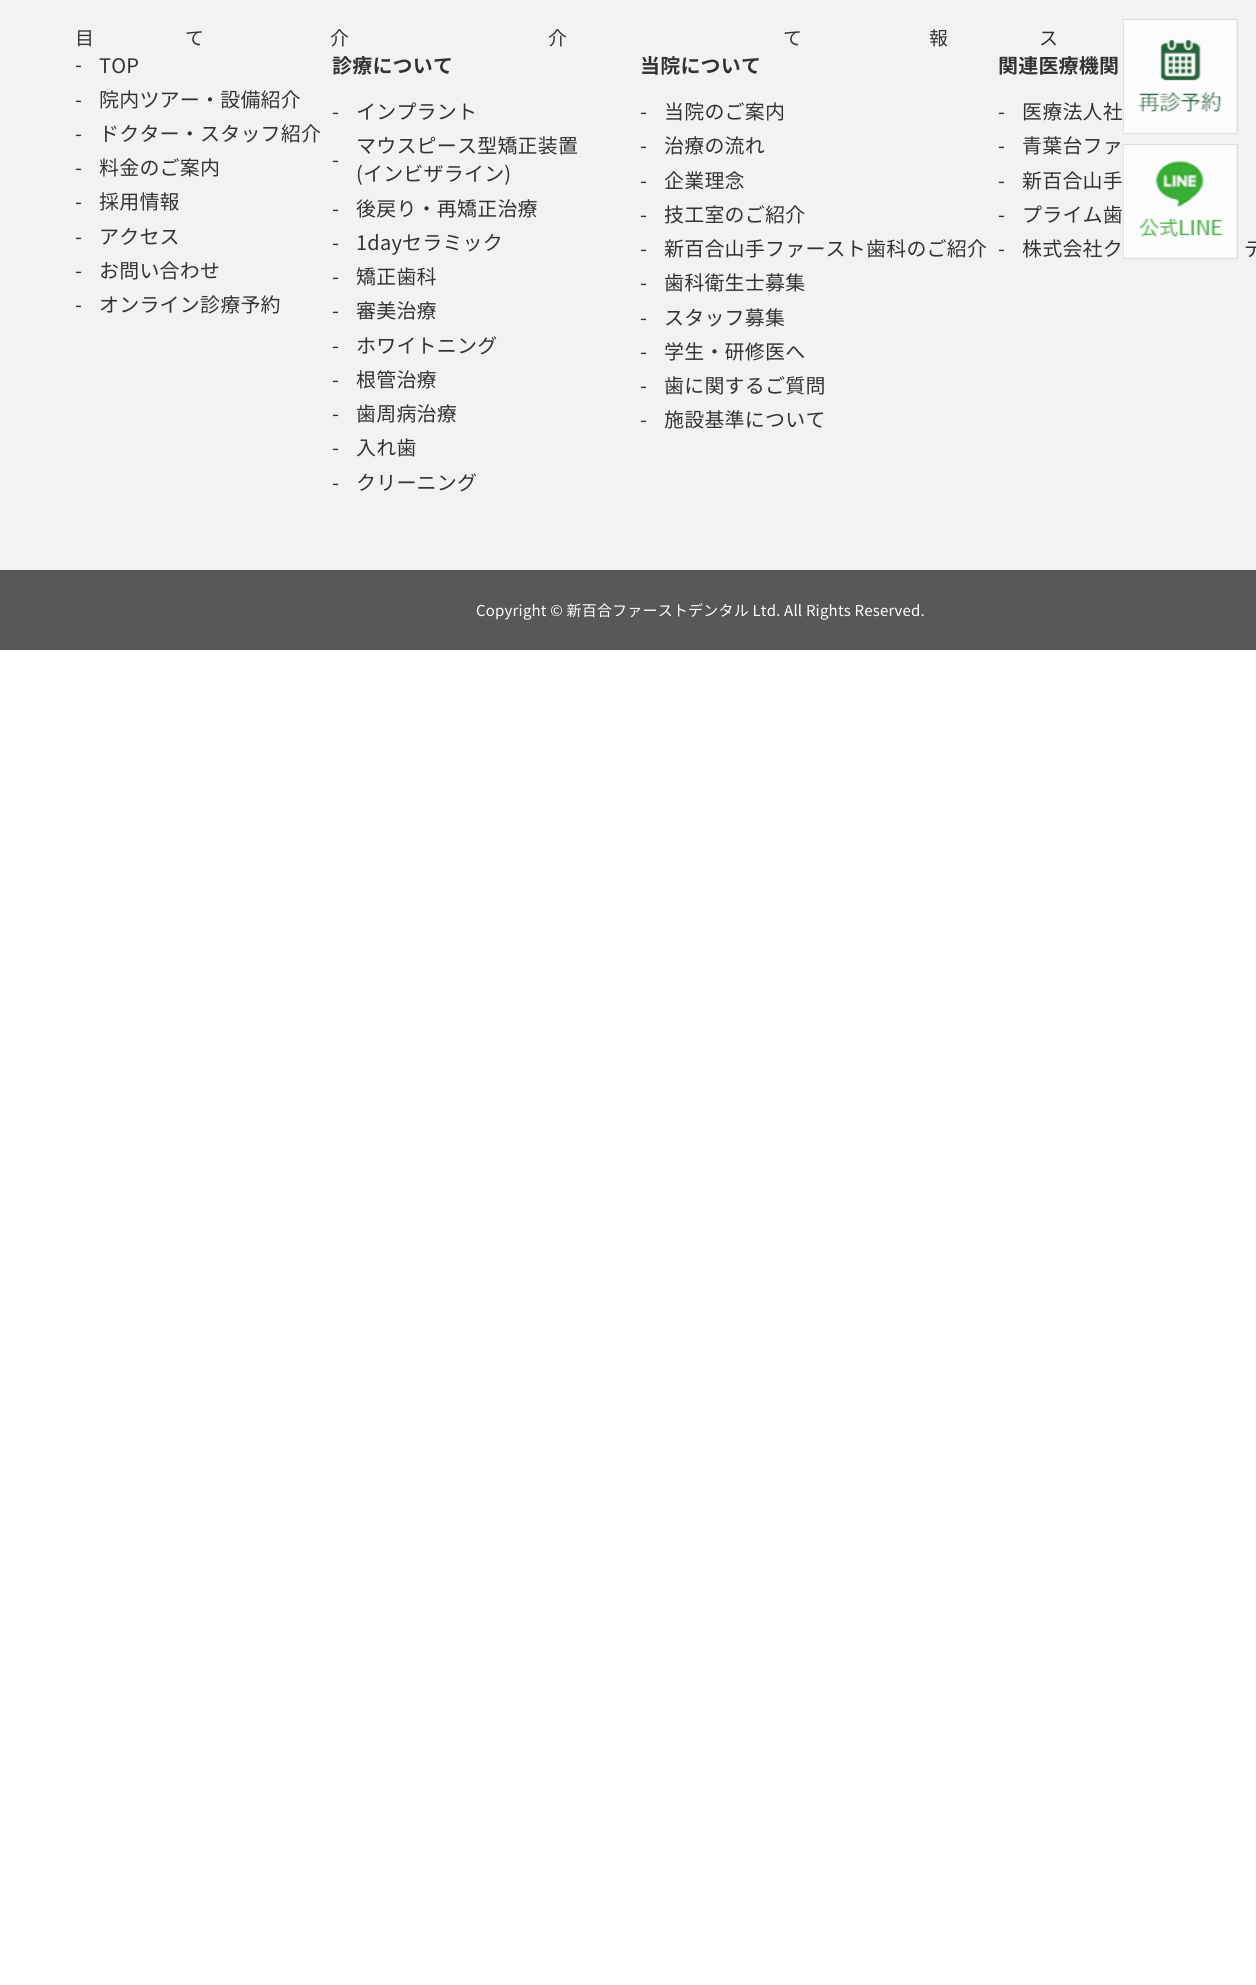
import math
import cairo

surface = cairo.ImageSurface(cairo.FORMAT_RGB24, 1256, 1985)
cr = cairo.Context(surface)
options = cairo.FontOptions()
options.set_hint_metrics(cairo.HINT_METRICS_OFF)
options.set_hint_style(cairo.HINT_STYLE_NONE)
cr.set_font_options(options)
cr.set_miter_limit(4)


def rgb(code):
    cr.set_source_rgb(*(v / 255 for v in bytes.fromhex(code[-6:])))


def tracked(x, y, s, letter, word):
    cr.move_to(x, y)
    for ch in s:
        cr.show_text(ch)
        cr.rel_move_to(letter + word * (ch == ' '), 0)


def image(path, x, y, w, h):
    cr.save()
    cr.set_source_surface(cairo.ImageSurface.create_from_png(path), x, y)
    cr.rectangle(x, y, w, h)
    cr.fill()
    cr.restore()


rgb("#ffffff")
cr.paint()
rgb("#f2f2f2")
cr.rectangle(0, 0, 1256, 570)
cr.fill()
cr.rectangle(1123.5, 19.5, 114, 114)
rgb("#dddddd")
cr.set_line_width(1)
cr.stroke()
image("img/1.png", 1123, 20, 114, 113)
cr.rectangle(1123.5, 144.5, 114, 114)
cr.stroke()
image("img/2.png", 1123, 145, 114, 113)
rgb("#595757")
cr.rectangle(0, 570, 1256, 80)
cr.fill()
cr.select_font_face("Noto Sans JP")
cr.set_font_size(19)
rgb("#333333")
for x, y, s in [
    (75, 45, "目"),
    (185, 45, "て"),
    (330, 45, "介"),
    (548, 45, "介"),
    (783, 45, "て"),
    (929, 45, "報"),
    (1039, 45, "ス"),
]:
    tracked(x, y, s, 0.2, 0)
cr.set_font_size(20)
for x, y, s in [
    (75, 72, "-"),
    (99, 73, "TOP"),
    (75, 107, "-"),
    (99, 107, "院内ツアー・設備紹介"),
    (75, 141, "-"),
    (99, 141, "ドクター・スタッフ紹介"),
    (75, 175, "-"),
    (99, 175, "料金のご案内"),
    (75, 209, "-"),
    (99, 209, "採用情報"),
    (75, 244, "-"),
    (99, 244, "アクセス"),
    (75, 278, "-"),
    (99, 278, "お問い合わせ"),
    (75, 312, "-"),
    (99, 312, "オンライン診療予約"),
]:
    tracked(x, y, s, 0.2, 0)
cr.select_font_face("Noto Sans JP", cairo.FONT_SLANT_NORMAL, cairo.FONT_WEIGHT_BOLD)
tracked(332, 73, "診療について", 0.2, 0)
cr.select_font_face("Noto Sans JP")
for x, y, s in [
    (332, 119, "-"),
    (356, 119, "インプラント"),
    (356, 153, "マウスピース型矯正装置"),
    (332, 167, "-"),
    (356, 181, "(インビザライン)"),
    (332, 216, "-"),
    (356, 216, "後戻り・再矯正治療"),
    (332, 250, "-"),
    (356, 250, "1dayセラミック"),
    (332, 284, "-"),
    (356, 284, "矯正歯科"),
    (332, 318, "-"),
    (356, 318, "審美治療"),
    (332, 353, "-"),
    (356, 353, "ホワイトニング"),
    (332, 387, "-"),
    (356, 387, "根管治療"),
    (332, 421, "-"),
    (356, 421, "歯周病治療"),
    (332, 455, "-"),
    (356, 455, "入れ歯"),
    (332, 490, "-"),
    (356, 490, "クリーニング"),
]:
    tracked(x, y, s, 0.2, 0)
cr.select_font_face("Noto Sans JP", cairo.FONT_SLANT_NORMAL, cairo.FONT_WEIGHT_BOLD)
tracked(640, 73, "当院について", 0.2, 0)
cr.select_font_face("Noto Sans JP")
for x, y, s in [
    (640, 119, "-"),
    (664, 119, "当院のご案内"),
    (640, 153, "-"),
    (664, 153, "治療の流れ"),
    (640, 188, "-"),
    (664, 188, "企業理念"),
    (640, 222, "-"),
    (664, 222, "技工室のご紹介"),
    (640, 256, "-"),
    (664, 256, "新百合山手ファースト歯科のご紹介"),
    (640, 290, "-"),
    (664, 290, "歯科衛生士募集"),
    (640, 325, "-"),
    (664, 325, "スタッフ募集"),
    (640, 359, "-"),
    (664, 359, "学生・研修医へ"),
    (640, 393, "-"),
    (664, 393, "歯に関するご質問"),
    (640, 427, "-"),
    (664, 427, "施設基準について"),
]:
    tracked(x, y, s, 0.2, 0)
cr.select_font_face("Noto Sans JP", cairo.FONT_SLANT_NORMAL, cairo.FONT_WEIGHT_BOLD)
tracked(998, 73, "関連医療機関", 0.2, 0)
cr.select_font_face("Noto Sans JP")
for x, y, s in [
    (998, 119, "-"),
    (1022, 119, "医療法人社"),
    (998, 153, "-"),
    (1022, 153, "青葉台ファ"),
    (998, 188, "-"),
    (1022, 188, "新百合山手"),
    (998, 222, "-"),
    (1022, 222, "プライム歯"),
    (998, 256, "-"),
    (1022, 256, "株式会社ク"),
    (1244, 256, "デ"),
]:
    tracked(x, y, s, 0.2, 0)
cr.set_font_size(15)
rgb("#ffffff")
tracked(476, 616, "Copyright © 新百合ファーストデンタル Ltd. All Rights Reserved.", 0.2, 0)
surface.write_to_png("page.png")
